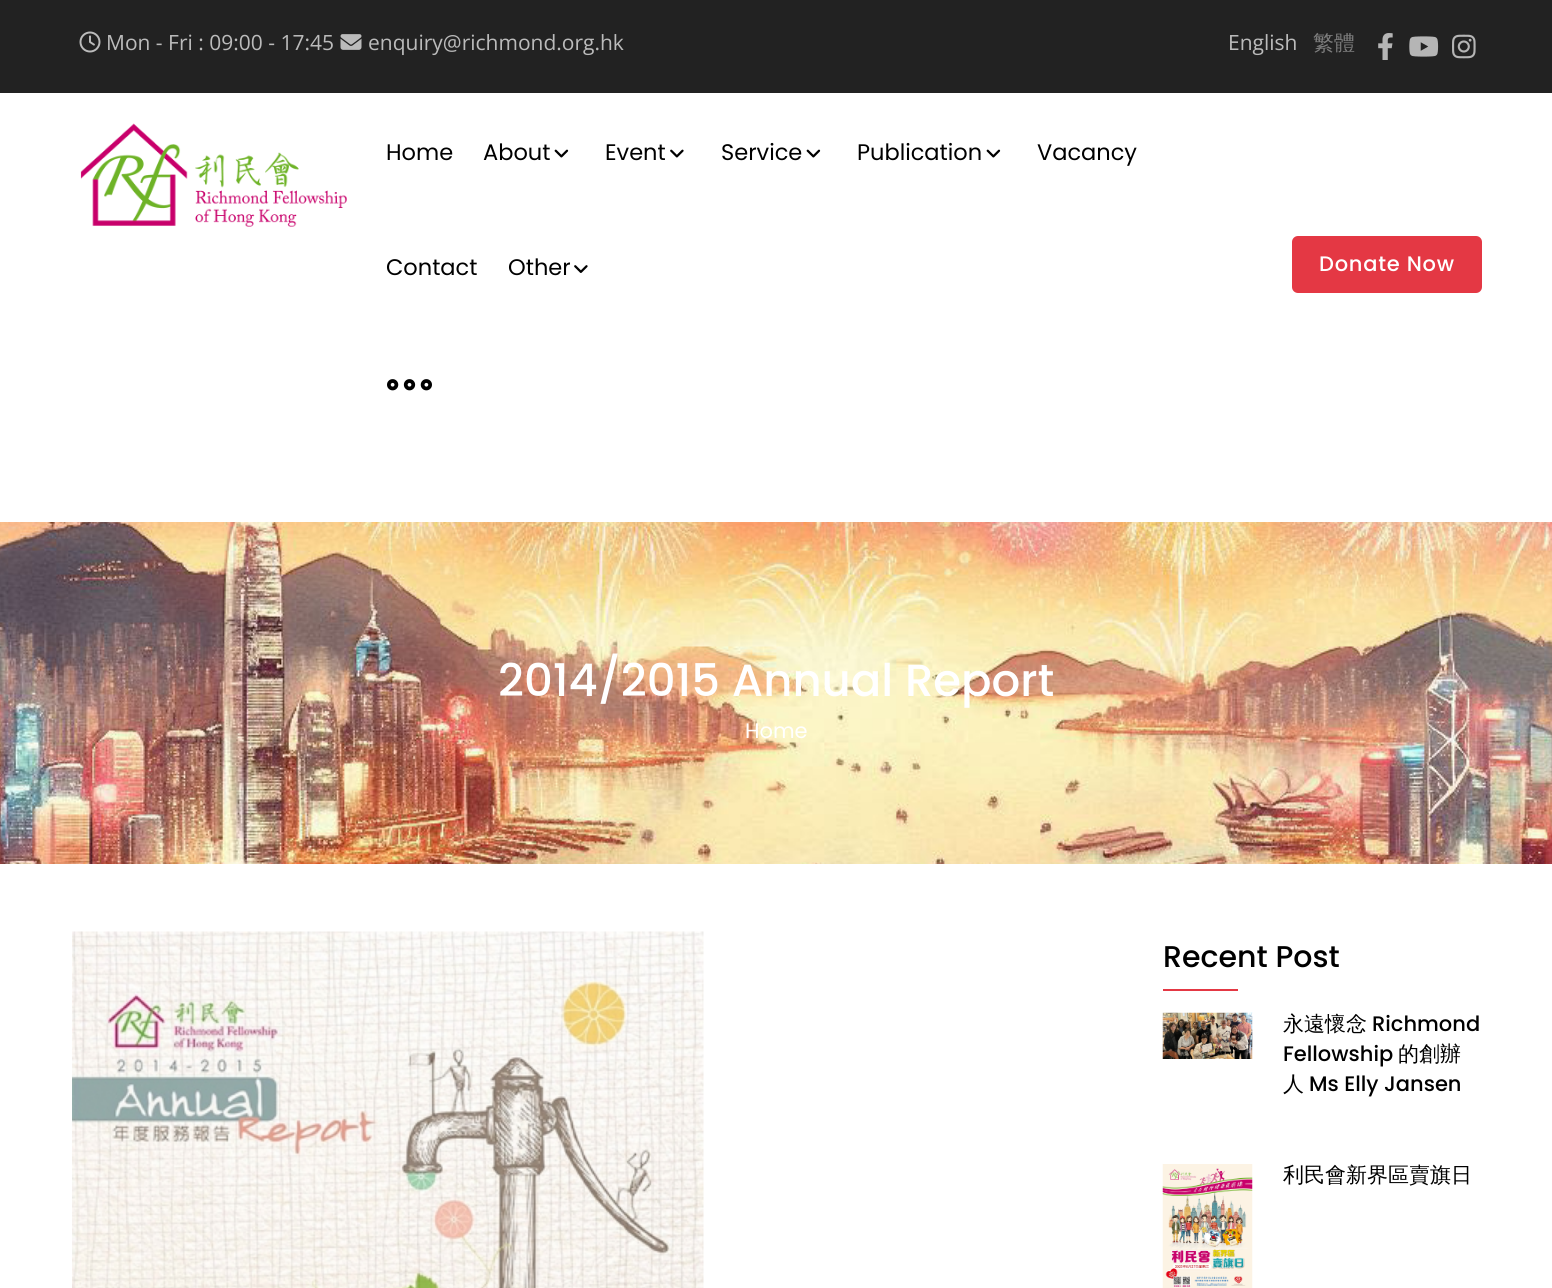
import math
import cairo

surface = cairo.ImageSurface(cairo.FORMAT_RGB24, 1552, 1288)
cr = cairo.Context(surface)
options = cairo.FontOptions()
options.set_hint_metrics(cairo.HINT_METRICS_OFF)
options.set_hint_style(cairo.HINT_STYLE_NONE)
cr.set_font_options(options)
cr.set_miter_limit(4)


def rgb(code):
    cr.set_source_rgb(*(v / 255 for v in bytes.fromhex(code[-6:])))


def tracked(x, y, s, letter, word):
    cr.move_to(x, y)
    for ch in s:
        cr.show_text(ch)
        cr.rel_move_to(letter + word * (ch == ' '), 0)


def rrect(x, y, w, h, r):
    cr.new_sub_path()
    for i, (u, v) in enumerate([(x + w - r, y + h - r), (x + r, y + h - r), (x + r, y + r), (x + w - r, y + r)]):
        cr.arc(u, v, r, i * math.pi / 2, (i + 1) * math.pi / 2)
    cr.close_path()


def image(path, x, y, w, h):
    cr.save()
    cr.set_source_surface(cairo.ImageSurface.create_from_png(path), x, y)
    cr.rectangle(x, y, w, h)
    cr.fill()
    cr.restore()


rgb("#ffffff")
cr.paint()
rgb("#222222")
cr.rectangle(0, 0, 1552, 93)
cr.fill()
image("img/1.png", 79, 31, 22, 22)
image("img/2.png", 340, 34, 22, 16)
image("img/3.png", 1378, 33, 15, 27)
image("img/4.png", 1409, 36, 30, 21)
image("img/5.png", 1452, 34, 24, 25)
image("img/6.png", 80, 123, 267, 104)
image("img/7.png", 554, 149, 15, 9)
image("img/8.png", 670, 149, 14, 9)
image("img/7.png", 806, 149, 15, 9)
image("img/7.png", 986, 149, 15, 9)
image("img/9.png", 574, 265, 14, 8)
image("img/10.png", 387, 379, 45, 12)
rgb("#e43844")
rrect(1292, 236, 190, 57, 6)
cr.fill()
image("img/11.png", 0, 522, 1552, 342)
image("img/12.png", 72, 931, 632, 357)
cr.rectangle(1163, 989, 75, 2)
cr.fill()
image("img/13.png", 1162, 1012, 91, 47)
image("img/14.png", 1162, 1164, 91, 124)
cr.select_font_face("Open Sans")
cr.set_font_size(21)
rgb("#bbbbbb")
for x, y, s in [
    (106, 50, "Mon - Fri : 09:00 - 17:45"),
    (368, 50, "enquiry@richmond.org.hk"),
    (1228, 50, "English"),
]:
    cr.move_to(x, y)
    cr.show_text(s)
cr.select_font_face("WenQuanYi Zen Hei Medium")
rgb("#7e7e7e")
cr.move_to(1313, 50)
cr.show_text("繁體")
cr.select_font_face("Poppins")
cr.set_font_size(22.5)
rgb("#000000")
for x, y, s in [
    (386, 160, "Home"),
    (483, 160, "About"),
    (605, 160, "Event"),
    (721, 160, "Service"),
    (857, 160, "Publication"),
    (1037, 160, "Vacancy"),
    (386, 275, "Contact"),
    (508, 275, "Other"),
]:
    cr.move_to(x, y)
    cr.show_text(s)
cr.select_font_face("Poppins Medium")
cr.set_font_size(21)
rgb("#ffffff")
tracked(1319, 271, "Donate Now", 0.75, 0)
cr.set_font_size(45)
cr.move_to(498, 696)
cr.show_text("2014/2015 Annual Report")
cr.select_font_face("Poppins")
cr.set_font_size(21)
cr.move_to(745, 738)
cr.show_text("Home")
cr.select_font_face("Poppins Medium")
cr.set_font_size(30)
rgb("#000000")
cr.move_to(1163, 967)
cr.show_text("Recent Post")
cr.select_font_face("WenQuanYi Zen Hei Medium")
cr.set_font_size(21)
cr.move_to(1283, 1031)
cr.show_text("永遠懷念")
cr.select_font_face("Poppins Medium")
cr.move_to(1372, 1031)
cr.show_text("Richmond")
cr.move_to(1283, 1061)
cr.show_text("Fellowship")
cr.select_font_face("WenQuanYi Zen Hei Medium")
cr.move_to(1398, 1061)
cr.show_text("的創辦")
cr.move_to(1283, 1091)
cr.show_text("人")
cr.select_font_face("Poppins Medium")
cr.move_to(1309, 1091)
cr.show_text("Ms Elly Jansen")
cr.select_font_face("WenQuanYi Zen Hei Medium")
cr.move_to(1283, 1182)
cr.show_text("利民會新界區賣旗日")
surface.write_to_png("page.png")
